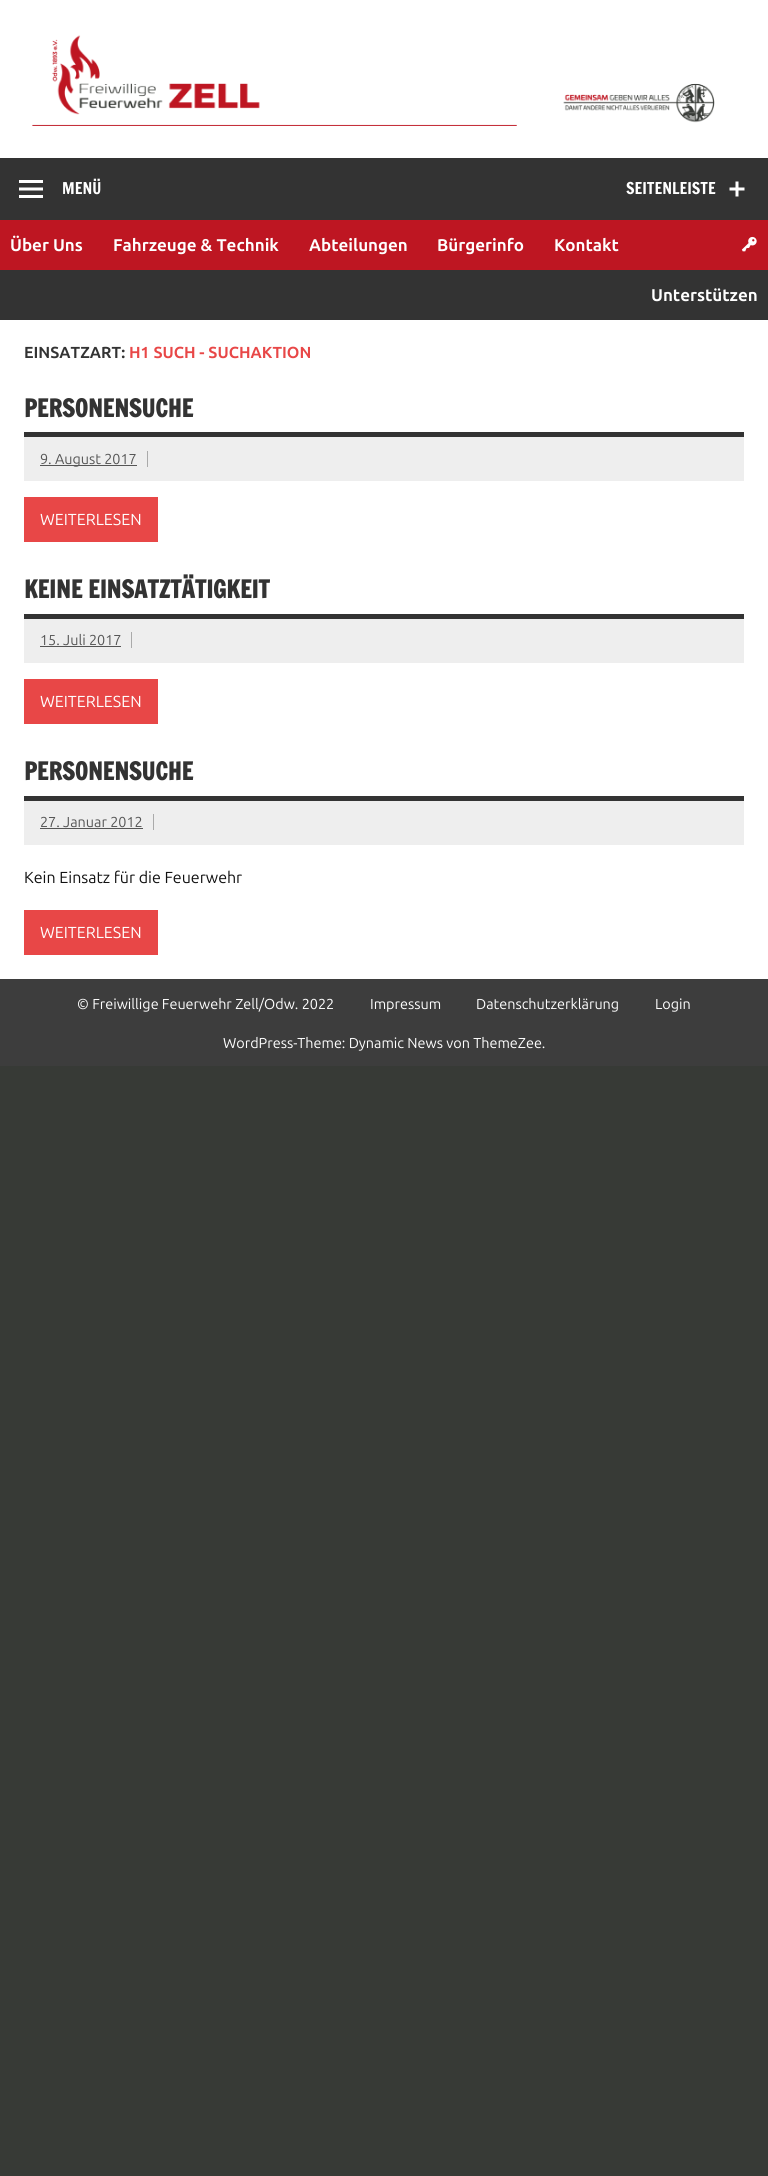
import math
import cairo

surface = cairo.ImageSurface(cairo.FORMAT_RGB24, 768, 2176)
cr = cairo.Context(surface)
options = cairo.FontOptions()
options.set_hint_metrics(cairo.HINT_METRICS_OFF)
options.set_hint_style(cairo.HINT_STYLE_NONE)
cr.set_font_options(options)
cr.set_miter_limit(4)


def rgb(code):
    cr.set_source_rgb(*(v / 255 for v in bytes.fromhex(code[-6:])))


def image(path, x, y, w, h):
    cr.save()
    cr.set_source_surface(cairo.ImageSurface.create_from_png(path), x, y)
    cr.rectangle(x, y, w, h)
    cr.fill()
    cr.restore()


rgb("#373a36")
cr.paint()
rgb("#ffffff")
cr.rectangle(0, 0, 768, 979)
cr.fill()
image("img/1.png", 32, 35, 683, 91)
rgb("#333333")
cr.rectangle(0, 158, 768, 162)
cr.fill()
image("img/2.png", 19, 180, 24, 18)
rgb("#be1622")
cr.rectangle(0, 220, 768, 50)
cr.fill()
image("img/3.png", 741, 236, 16, 16)
image("img/4.png", 729, 181, 16, 16)
for x, y, w, h, color in [
    (24, 432, 720, 5, "#333333"),
    (24, 437, 720, 44, "#eeeeee"),
    (147, 451, 1, 16, "#aaaaaa"),
    (40, 465, 97, 1, "#555555"),
    (24, 497, 134, 45, "#e84747"),
    (24, 614, 720, 5, "#333333"),
    (24, 619, 720, 44, "#eeeeee"),
    (131, 632, 1, 16, "#aaaaaa"),
    (40, 646, 81, 1, "#555555"),
    (24, 679, 134, 45, "#e84747"),
    (24, 796, 720, 5, "#333333"),
    (24, 801, 720, 44, "#eeeeee"),
    (153, 814, 1, 16, "#aaaaaa"),
    (40, 828, 103, 1, "#555555"),
    (24, 910, 134, 45, "#e84747"),
    (0, 979, 768, 87, "#3d3d3d"),
]:
    rgb(color)
    cr.rectangle(x, y, w, h)
    cr.fill()
cr.select_font_face("Francois One")
cr.set_font_size(16)
rgb("#ffffff")
cr.move_to(62, 194)
cr.show_text("MENÜ")
cr.select_font_face("Ubuntu", cairo.FONT_SLANT_NORMAL, cairo.FONT_WEIGHT_BOLD)
cr.set_font_size(17)
for x, y, s in [
    (10, 251, "Über Uns"),
    (113, 251, "Fahrzeuge & Technik"),
    (309, 251, "Abteilungen"),
    (437, 251, "Bürgerinfo"),
    (554, 251, "Kontakt"),
    (651, 301, "Unterstützen"),
]:
    cr.move_to(x, y)
    cr.show_text(s)
cr.select_font_face("Francois One")
cr.set_font_size(16)
cr.move_to(626, 194)
cr.show_text("SEITENLEISTE")
cr.select_font_face("Ubuntu", cairo.FONT_SLANT_NORMAL, cairo.FONT_WEIGHT_BOLD)
rgb("#333333")
cr.move_to(24, 358)
cr.show_text("EINSATZART:")
rgb("#e84747")
cr.move_to(129, 358)
cr.show_text("H1 SUCH - SUCHAKTION")
cr.select_font_face("Francois One", cairo.FONT_SLANT_NORMAL, cairo.FONT_WEIGHT_BOLD)
cr.set_font_size(24)
rgb("#333333")
cr.move_to(24, 417)
cr.show_text("PERSONENSUCHE")
cr.select_font_face("Ubuntu")
cr.set_font_size(14.4)
rgb("#555555")
cr.move_to(40, 464)
cr.show_text("9. August 2017")
cr.set_font_size(16)
rgb("#ffffff")
cr.move_to(40, 525)
cr.show_text("WEITERLESEN")
cr.select_font_face("Francois One", cairo.FONT_SLANT_NORMAL, cairo.FONT_WEIGHT_BOLD)
cr.set_font_size(24)
rgb("#333333")
cr.move_to(24, 598)
cr.show_text("KEINE EINSATZTÄTIGKEIT")
cr.select_font_face("Ubuntu")
cr.set_font_size(14.4)
rgb("#555555")
cr.move_to(40, 645)
cr.show_text("15. Juli 2017")
cr.set_font_size(16)
rgb("#ffffff")
cr.move_to(40, 707)
cr.show_text("WEITERLESEN")
cr.select_font_face("Francois One", cairo.FONT_SLANT_NORMAL, cairo.FONT_WEIGHT_BOLD)
cr.set_font_size(24)
rgb("#333333")
cr.move_to(24, 780)
cr.show_text("PERSONENSUCHE")
cr.select_font_face("Ubuntu")
cr.set_font_size(14.4)
rgb("#555555")
cr.move_to(40, 827)
cr.show_text("27. Januar 2012")
cr.set_font_size(16)
rgb("#111111")
cr.move_to(24, 883)
cr.show_text("Kein Einsatz für die Feuerwehr")
rgb("#ffffff")
cr.move_to(40, 938)
cr.show_text("WEITERLESEN")
cr.set_font_size(14.4)
for x, y, s in [
    (77, 1009, "© Freiwillige Feuerwehr Zell/Odw. 2022"),
    (370, 1009, "Impressum"),
    (476, 1009, "Datenschutzerklärung"),
    (655, 1009, "Login"),
    (223, 1048, "WordPress-Theme: Dynamic News von ThemeZee."),
]:
    cr.move_to(x, y)
    cr.show_text(s)
surface.write_to_png("page.png")
